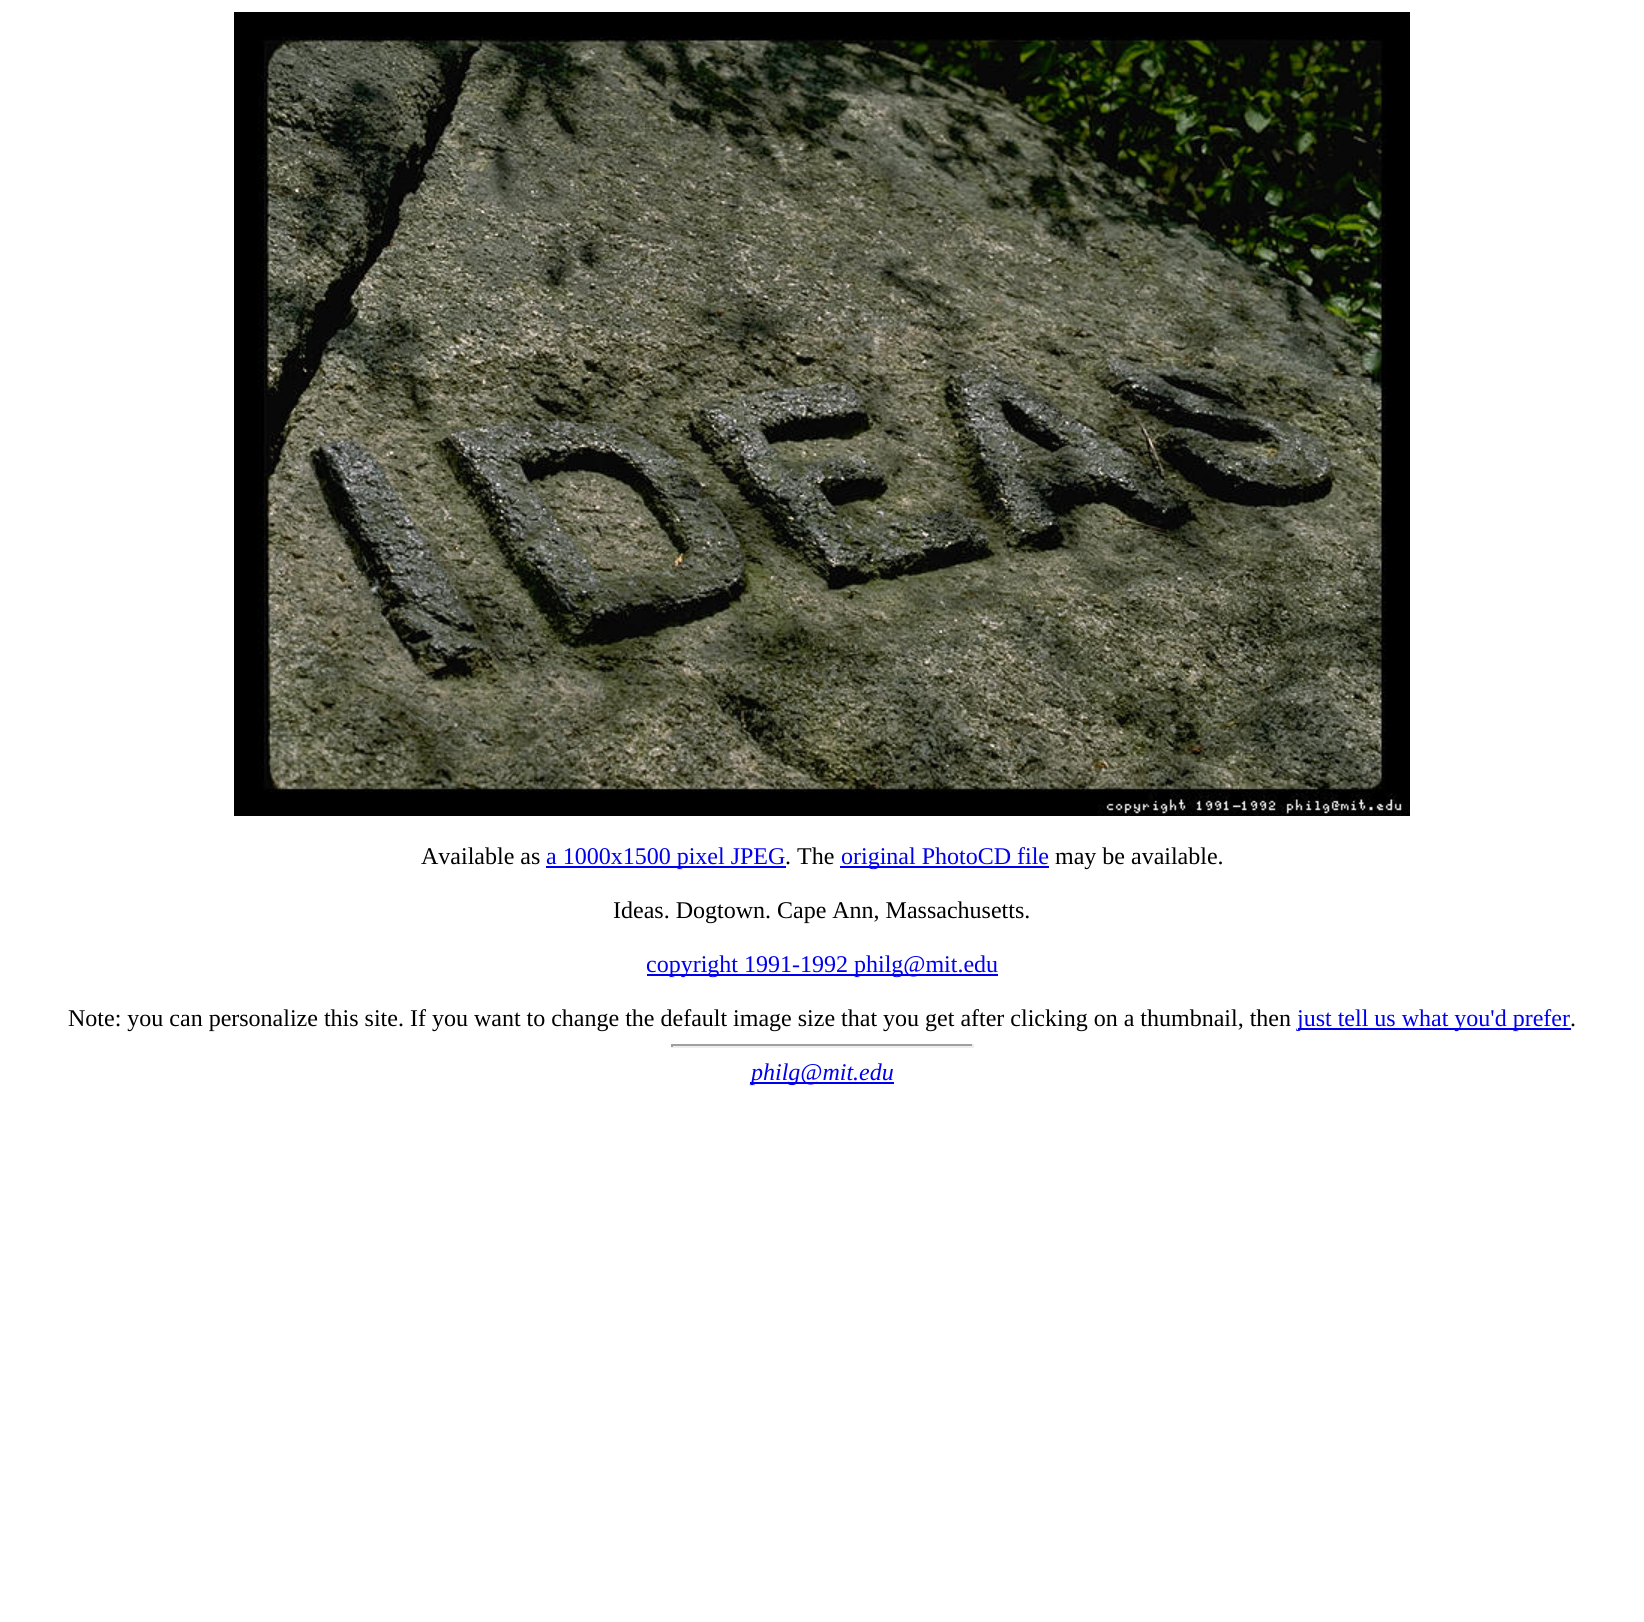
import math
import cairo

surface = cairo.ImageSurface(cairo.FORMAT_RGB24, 1644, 1622)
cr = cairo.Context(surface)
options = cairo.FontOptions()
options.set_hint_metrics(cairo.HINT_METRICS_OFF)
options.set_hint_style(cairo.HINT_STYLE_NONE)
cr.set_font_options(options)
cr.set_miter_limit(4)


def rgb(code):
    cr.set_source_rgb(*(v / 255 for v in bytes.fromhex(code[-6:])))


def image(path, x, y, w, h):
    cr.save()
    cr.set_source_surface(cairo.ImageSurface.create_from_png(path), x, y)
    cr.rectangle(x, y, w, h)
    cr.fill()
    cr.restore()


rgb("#ffffff")
cr.paint()
image("img/1.png", 234, 12, 1176, 804)
for x, y, w, h, color in [
    (546, 866, 240, 2, "#0000ee"),
    (840, 866, 209, 2, "#0000ee"),
    (647, 974, 351, 2, "#0000ee"),
    (1298, 1028, 273, 2, "#0000ee"),
    (671, 1044, 303, 2, "#9f9f9f"),
    (972, 1044, 2, 3, "#eeeeee"),
    (671, 1046, 303, 2, "#eeeeee"),
    (671, 1044, 2, 3, "#9f9f9f"),
    (750, 1082, 144, 2, "#0000ee"),
]:
    rgb(color)
    cr.rectangle(x, y, w, h)
    cr.fill()
cr.select_font_face("Liberation Serif")
cr.set_font_size(24)
rgb("#000000")
cr.move_to(421, 864)
cr.show_text("Available as")
rgb("#0000ee")
cr.move_to(546, 864)
cr.show_text("a 1000x1500 pixel JPEG")
rgb("#000000")
cr.move_to(785, 864)
cr.show_text(". The")
rgb("#0000ee")
cr.move_to(841, 864)
cr.show_text("original PhotoCD file")
rgb("#000000")
cr.move_to(1055, 864)
cr.show_text("may be available.")
cr.move_to(613, 918)
cr.show_text("Ideas. Dogtown. Cape Ann, Massachusetts.")
rgb("#0000ee")
cr.move_to(646, 972)
cr.show_text("copyright 1991-1992 philg@mit.edu")
rgb("#000000")
cr.move_to(68, 1026)
cr.show_text("Note: you can personalize this site. If you want to change the default image size that you get after clicking on a thumbnail, then")
rgb("#0000ee")
cr.move_to(1297, 1026)
cr.show_text("just tell us what you'd prefer")
rgb("#000000")
cr.move_to(1570, 1026)
cr.show_text(".")
cr.select_font_face("Liberation Serif", cairo.FONT_SLANT_ITALIC)
rgb("#0000ee")
cr.move_to(751, 1080)
cr.show_text("philg@mit.edu")
surface.write_to_png("page.png")
